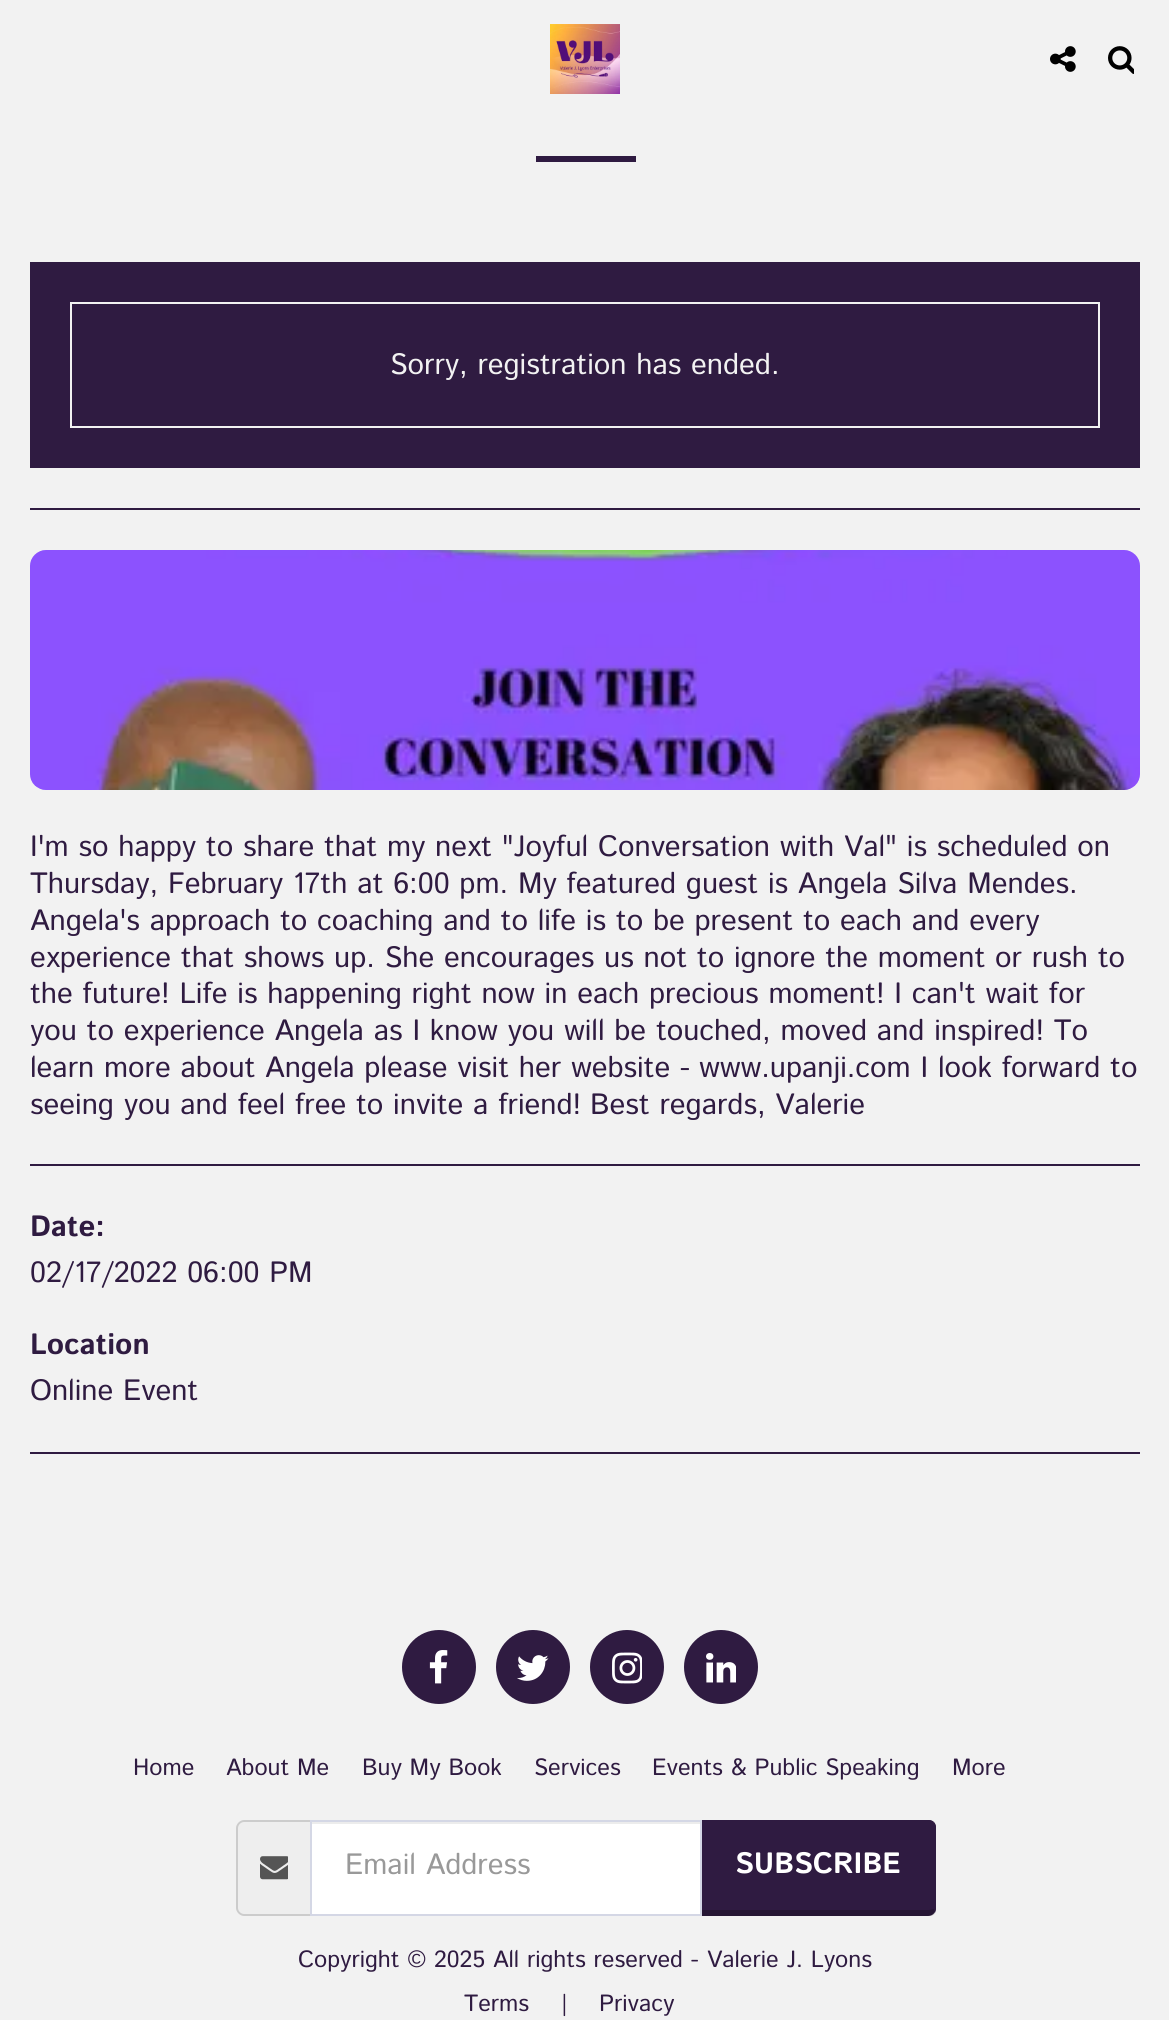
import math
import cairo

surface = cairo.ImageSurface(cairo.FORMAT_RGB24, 1169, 2020)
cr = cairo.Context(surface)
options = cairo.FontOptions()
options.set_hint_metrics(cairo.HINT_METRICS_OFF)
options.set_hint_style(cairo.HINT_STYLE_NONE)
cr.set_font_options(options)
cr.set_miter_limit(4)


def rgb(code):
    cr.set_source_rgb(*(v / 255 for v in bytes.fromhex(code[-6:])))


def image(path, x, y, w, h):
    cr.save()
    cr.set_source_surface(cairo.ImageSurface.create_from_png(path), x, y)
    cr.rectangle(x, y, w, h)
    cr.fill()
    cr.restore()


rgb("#f2f2f2")
cr.paint()
image("img/1.png", 550, 24, 70, 70)
image("img/2.png", 1050, 46, 26, 26)
image("img/3.png", 1108, 46, 26, 28)
rgb("#2f1b41")
cr.rectangle(536, 156, 100, 6)
cr.fill()
cr.rectangle(30, 262, 1110, 206)
cr.fill()
cr.rectangle(71, 303, 1028, 124)
rgb("#f2f2f2")
cr.stroke()
rgb("#2f1b41")
cr.rectangle(30, 508, 1110, 2)
cr.fill()
image("img/4.png", 30, 550, 1110, 240)
cr.rectangle(30, 1164, 1110, 2)
cr.fill()
cr.rectangle(30, 1452, 1110, 2)
cr.fill()
cr.arc(439, 1667, 36, 0, 2 * math.pi)
cr.fill_preserve()
cr.stroke()
image("img/5.png", 429, 1650, 19, 34)
cr.arc(533, 1667, 36, 0, 2 * math.pi)
cr.fill_preserve()
cr.stroke()
image("img/6.png", 517, 1655, 32, 26)
cr.arc(627, 1667, 36, 0, 2 * math.pi)
cr.fill_preserve()
cr.stroke()
image("img/7.png", 612, 1652, 30, 32)
cr.arc(721, 1667, 36, 0, 2 * math.pi)
cr.fill_preserve()
cr.stroke()
image("img/8.png", 706, 1653, 30, 30)
rgb("#eeeeee")
cr.new_path()
cr.move_to(244, 1822)
cr.line_to(310, 1822)
cr.line_to(310, 1914)
cr.line_to(244, 1914)
cr.curve_to(240.5, 1914, 238, 1911.5, 238, 1908)
cr.line_to(238, 1828)
cr.curve_to(238, 1824.5, 240.5, 1822, 244, 1822)
cr.close_path()
cr.fill()
rgb("#cccccc")
cr.set_fill_rule(cairo.FILL_RULE_EVEN_ODD)
cr.new_path()
cr.move_to(244, 1820)
cr.line_to(310, 1820)
cr.line_to(310, 1916)
cr.line_to(244, 1916)
cr.curve_to(240, 1916, 236, 1912, 236, 1908)
cr.line_to(236, 1828)
cr.curve_to(236, 1824, 240, 1820, 244, 1820)
cr.close_path()
cr.move_to(244, 1822)
cr.line_to(310, 1822)
cr.line_to(310, 1914)
cr.line_to(244, 1914)
cr.curve_to(241, 1914, 238, 1911, 238, 1908)
cr.line_to(238, 1828)
cr.curve_to(238, 1825, 241, 1822, 244, 1822)
cr.close_path()
cr.fill()
image("img/9.png", 260, 1856, 28, 24)
rgb("#ffffff")
cr.rectangle(312, 1824, 388, 90)
cr.fill()
rgb("#ececec")
cr.rectangle(312, 1822, 388, 2)
cr.fill()
rgb("#2f1b41")
cr.new_path()
cr.move_to(700, 1820)
cr.line_to(928, 1820)
cr.curve_to(932.5, 1820, 936, 1823.5, 936, 1828)
cr.line_to(936, 1908)
cr.curve_to(936, 1912.5, 932.5, 1916, 928, 1916)
cr.line_to(700, 1916)
cr.close_path()
cr.fill()
cr.set_fill_rule(cairo.FILL_RULE_WINDING)
cr.new_path()
cr.move_to(700, 1820)
cr.line_to(702, 1822)
cr.line_to(929, 1822)
cr.curve_to(930, 1822, 932, 1822, 933, 1823)
cr.line_to(934, 1822)
cr.curve_to(933, 1821, 931, 1820, 929, 1820)
cr.close_path()
cr.fill()
cr.new_path()
cr.move_to(936, 1909)
cr.line_to(936, 1827)
cr.curve_to(936, 1825, 935, 1823, 934, 1822)
cr.line_to(933, 1823)
cr.curve_to(936, 1827, 934, 1839, 934, 1841)
cr.line_to(934, 1909)
cr.line_to(935, 1913)
cr.close_path()
cr.fill()
cr.set_source_rgba(0, 0, 0, 0.2)
cr.new_path()
cr.move_to(929, 1916)
cr.curve_to(932, 1916, 934, 1915, 935, 1913)
cr.line_to(934, 1909)
cr.line_to(929, 1910)
cr.line_to(702, 1910)
cr.line_to(700, 1916)
cr.close_path()
cr.fill()
cr.rectangle(311, 1821, 390, 94)
rgb("#d4d7e5")
cr.stroke()
cr.select_font_face("Istok Web")
cr.set_font_size(29.4)
rgb("#f2f2f2")
cr.move_to(390, 374)
cr.show_text("Sorry, registration has ended.")
rgb("#2f1b41")
for x, y, s in [
    (30, 856, "I'm so happy to share that my next \"Joyful Conversation with Val\" is scheduled on"),
    (30, 893, "Thursday, February 17th at 6:00 pm. My featured guest is Angela Silva Mendes."),
    (30, 930, "Angela's approach to coaching and to life is to be present to each and every"),
    (30, 967, "experience that shows up. She encourages us not to ignore the moment or rush to"),
    (30, 1003, "the future! Life is happening right now in each precious moment! I can't wait for"),
    (30, 1040, "you to experience Angela as I know you will be touched, moved and inspired! To"),
    (30, 1077, "learn more about Angela please visit her website -"),
    (699, 1077, "www.upanji.com I look forward to"),
    (30, 1114, "seeing you and feel free to invite a friend!"),
    (590, 1114, "Best regards, Valerie"),
]:
    cr.move_to(x, y)
    cr.show_text(s)
cr.select_font_face("Istok Web", cairo.FONT_SLANT_NORMAL, cairo.FONT_WEIGHT_BOLD)
cr.move_to(30, 1236)
cr.show_text("Date:")
cr.select_font_face("Istok Web")
cr.move_to(30, 1282)
cr.show_text("02/17/2022 06:00 PM")
cr.select_font_face("Istok Web", cairo.FONT_SLANT_NORMAL, cairo.FONT_WEIGHT_BOLD)
cr.move_to(30, 1354)
cr.show_text("Location")
cr.select_font_face("Istok Web")
cr.move_to(30, 1400)
cr.show_text("Online Event")
cr.set_font_size(23.5)
for x, y, s in [
    (133, 1775, "Home"),
    (226, 1775, "About Me"),
    (362, 1775, "Buy My Book"),
    (534, 1775, "Services"),
    (652, 1775, "Events & Public Speaking"),
    (952, 1775, "More"),
]:
    cr.move_to(x, y)
    cr.show_text(s)
cr.set_font_size(29.4)
rgb("#999999")
cr.move_to(345, 1874)
cr.show_text("Email Address")
cr.select_font_face("Istok Web", cairo.FONT_SLANT_NORMAL, cairo.FONT_WEIGHT_BOLD)
rgb("#ffffff")
cr.move_to(735, 1873)
cr.show_text("SUBSCRIBE")
cr.select_font_face("Istok Web")
cr.set_font_size(23.5)
rgb("#2f1b41")
for x, y, s in [
    (298, 1967, "Copyright © 2025 All rights reserved -"),
    (707, 1967, "Valerie J. Lyons"),
    (464, 2011, "Terms"),
    (561, 2011, "|"),
    (599, 2011, "Privacy"),
]:
    cr.move_to(x, y)
    cr.show_text(s)
surface.write_to_png("page.png")
